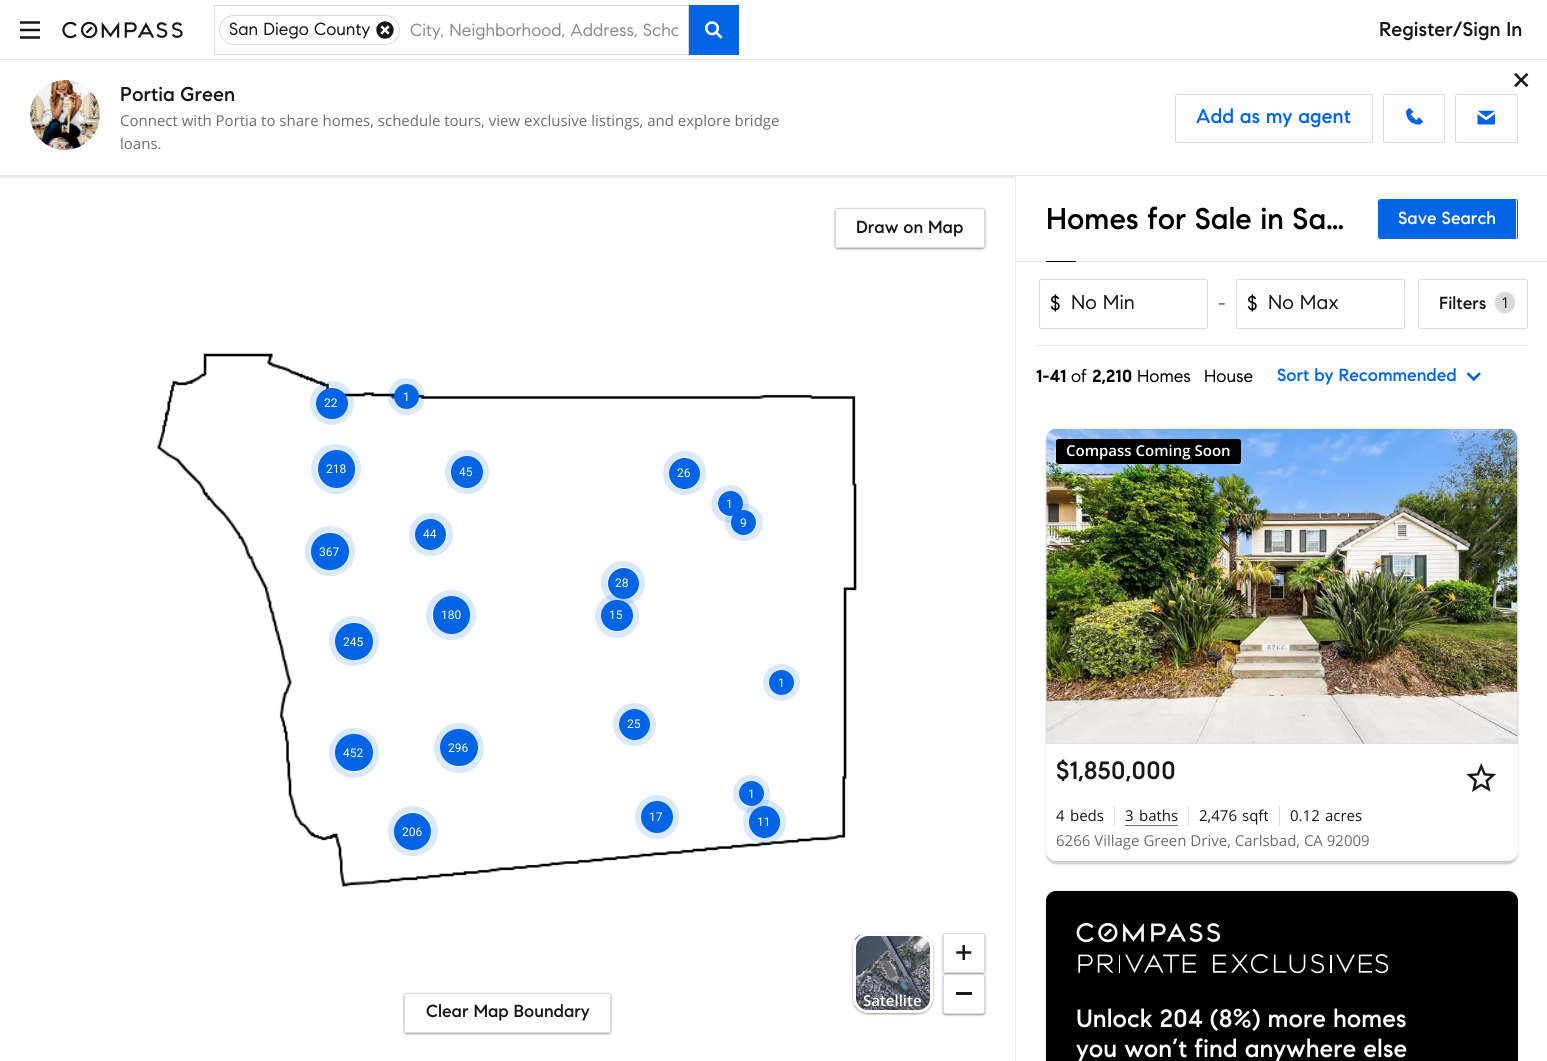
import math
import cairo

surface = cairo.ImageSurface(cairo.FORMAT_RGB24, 1547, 1061)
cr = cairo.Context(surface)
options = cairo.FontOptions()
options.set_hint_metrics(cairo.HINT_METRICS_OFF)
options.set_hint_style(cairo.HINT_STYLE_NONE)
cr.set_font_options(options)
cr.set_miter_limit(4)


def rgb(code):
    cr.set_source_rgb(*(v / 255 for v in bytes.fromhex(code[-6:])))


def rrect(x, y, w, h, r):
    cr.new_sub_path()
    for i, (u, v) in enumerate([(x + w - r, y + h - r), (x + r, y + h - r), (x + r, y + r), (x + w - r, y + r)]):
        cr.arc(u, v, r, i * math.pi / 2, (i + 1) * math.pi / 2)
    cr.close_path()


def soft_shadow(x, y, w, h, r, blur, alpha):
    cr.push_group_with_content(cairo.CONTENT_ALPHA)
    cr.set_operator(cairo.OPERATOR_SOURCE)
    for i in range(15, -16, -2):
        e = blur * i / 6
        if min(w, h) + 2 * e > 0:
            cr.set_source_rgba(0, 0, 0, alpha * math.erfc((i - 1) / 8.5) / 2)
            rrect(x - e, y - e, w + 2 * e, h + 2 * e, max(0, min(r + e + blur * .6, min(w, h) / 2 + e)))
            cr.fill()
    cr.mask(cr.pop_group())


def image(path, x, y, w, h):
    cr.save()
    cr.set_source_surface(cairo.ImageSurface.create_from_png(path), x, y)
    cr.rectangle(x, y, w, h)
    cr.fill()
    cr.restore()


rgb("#ffffff")
cr.paint()
rgb("#e6e6e6")
cr.rectangle(0, 59, 1547, 1)
cr.fill()
image("img/1.png", 20, 21, 20, 18)
image("img/2.png", 62, 21, 121, 18)
cr.rectangle(214.5, 5.5, 474, 49)
rgb("#dadada")
cr.set_line_width(1)
cr.stroke()
rrect(219.5, 15.5, 180, 29, 14.5)
cr.stroke()
image("img/3.png", 376, 21, 18, 18)
rgb("#0064e5")
cr.rectangle(689, 5, 50, 50)
cr.fill()
image("img/4.png", 705, 21, 18, 18)
rgb("#e6e6e6")
cr.rectangle(0, 175, 1547, 1)
cr.fill()
image("img/5.png", 1514, 72, 15, 16)
rgb("#f4f4f4")
cr.arc(65, 115, 35, 0, 2 * math.pi)
cr.fill()
image("img/6.png", 30, 80, 70, 70)
rrect(1175.5, 94.5, 197, 48, 2)
rgb("#dadada")
cr.stroke()
rrect(1383.5, 94.5, 61, 48, 2)
cr.stroke()
image("img/7.png", 1406, 107, 17, 18)
rrect(1455.5, 94.5, 62, 48, 2)
cr.stroke()
image("img/8.png", 1477, 110, 18, 15)
rgb("#ebebeb")
cr.new_path()
cr.move_to(0, 176)
cr.line_to(1016, 176)
cr.line_to(1015, 178)
cr.line_to(0, 178)
cr.close_path()
cr.fill()
cr.set_source_rgba(0, 0, 0, 0.08)
cr.new_path()
cr.move_to(1016, 176)
cr.line_to(1016, 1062)
cr.line_to(1015, 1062)
cr.line_to(1015, 178)
cr.close_path()
cr.fill()
cr.save()
cr.set_fill_rule(cairo.FILL_RULE_EVEN_ODD)
cr.new_path()
cr.move_to(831, 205)
cr.line_to(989, 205)
cr.line_to(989, 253)
cr.line_to(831, 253)
cr.close_path()
cr.move_to(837.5, 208)
cr.line_to(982.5, 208)
cr.curve_to(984, 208, 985, 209, 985, 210.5)
cr.line_to(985, 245.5)
cr.curve_to(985, 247, 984, 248, 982.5, 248)
cr.line_to(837.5, 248)
cr.curve_to(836, 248, 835, 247, 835, 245.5)
cr.line_to(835, 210.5)
cr.curve_to(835, 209, 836, 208, 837.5, 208)
cr.close_path()
cr.clip()
rgb("#000000")
soft_shadow(835, 209, 150, 40, 2.5, 1, 0.4)
cr.restore()
rrect(835.5, 208.5, 149, 39, 2)
rgb("#dadada")
cr.stroke()
rgb("#000000")
soft_shadow(853, 934, 80, 80, 15, 1, 0.4)
image("img/9.png", 855, 935, 75, 75)
rrect(854.5, 934.5, 77, 77, 13.5)
rgb("#ffffff")
cr.set_line_width(3)
cr.stroke()
cr.save()
cr.set_fill_rule(cairo.FILL_RULE_EVEN_ODD)
cr.new_path()
cr.move_to(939, 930)
cr.line_to(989, 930)
cr.line_to(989, 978)
cr.line_to(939, 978)
cr.close_path()
cr.move_to(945.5, 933)
cr.line_to(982.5, 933)
cr.curve_to(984, 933, 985, 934, 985, 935.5)
cr.line_to(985, 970.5)
cr.curve_to(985, 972, 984, 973, 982.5, 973)
cr.line_to(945.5, 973)
cr.curve_to(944, 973, 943, 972, 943, 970.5)
cr.line_to(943, 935.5)
cr.curve_to(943, 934, 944, 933, 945.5, 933)
cr.close_path()
cr.clip()
rgb("#000000")
soft_shadow(943, 934, 42, 40, 2.5, 1, 0.4)
cr.restore()
rrect(943.5, 933.5, 41, 39, 2)
rgb("#dadada")
cr.set_line_width(1)
cr.stroke()
image("img/10.png", 956, 945, 16, 15)
rgb("#000000")
soft_shadow(943, 975, 42, 40, 2.5, 1, 0.4)
rgb("#ffffff")
rrect(944, 975, 40, 38, 1)
cr.fill()
rrect(943.5, 974.5, 41, 39, 2)
rgb("#dadada")
cr.stroke()
rgb("#171717")
cr.rectangle(956, 992, 16, 3)
cr.fill()
cr.save()
cr.set_fill_rule(cairo.FILL_RULE_EVEN_ODD)
cr.new_path()
cr.move_to(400, 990)
cr.line_to(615, 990)
cr.line_to(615, 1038)
cr.line_to(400, 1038)
cr.close_path()
cr.move_to(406.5, 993)
cr.line_to(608.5, 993)
cr.curve_to(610, 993, 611, 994, 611, 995.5)
cr.line_to(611, 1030.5)
cr.curve_to(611, 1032, 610, 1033, 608.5, 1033)
cr.line_to(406.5, 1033)
cr.curve_to(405, 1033, 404, 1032, 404, 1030.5)
cr.line_to(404, 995.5)
cr.curve_to(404, 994, 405, 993, 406.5, 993)
cr.close_path()
cr.clip()
rgb("#000000")
soft_shadow(404, 994, 207, 40, 2.5, 1, 0.4)
cr.restore()
rrect(404.5, 993.5, 206, 39, 2)
rgb("#dadada")
cr.stroke()
image("img/11.png", 157, 353, 700, 535)
rgb("#0064e5")
cr.arc(406.5, 396.5, 12.5, 0, 2 * math.pi)
cr.fill()
cr.arc(406.5, 396.5, 15.5, 0, 2 * math.pi)
cr.set_source_rgba(0, 0.392, 0.898, 0.15)
cr.set_line_width(6)
cr.stroke()
rgb("#0064e5")
rrect(316, 388, 32, 31, 15.5)
cr.fill()
cr.arc(332, 403, 19, 0, 2 * math.pi)
cr.set_source_rgba(0, 0.392, 0.898, 0.15)
cr.stroke()
rgb("#0064e5")
rrect(318, 450, 37, 38, 18.5)
cr.fill()
cr.arc(336, 469, 22, 0, 2 * math.pi)
cr.set_source_rgba(0, 0.392, 0.898, 0.15)
cr.stroke()
rgb("#0064e5")
cr.arc(467, 472, 16, 0, 2 * math.pi)
cr.fill()
cr.arc(467, 472, 19, 0, 2 * math.pi)
cr.set_source_rgba(0, 0.392, 0.898, 0.15)
cr.stroke()
rgb("#0064e5")
cr.arc(684.5, 473.5, 15.5, 0, 2 * math.pi)
cr.fill()
rrect(666, 454, 37, 38, 18.5)
cr.set_source_rgba(0, 0.392, 0.898, 0.15)
cr.stroke()
rgb("#0064e5")
cr.arc(743.5, 522.5, 12.5, 0, 2 * math.pi)
cr.fill()
rrect(728, 507, 32, 31, 15.5)
cr.set_source_rgba(0, 0.392, 0.898, 0.15)
cr.stroke()
rgb("#0064e5")
cr.arc(730.5, 503.5, 12.5, 0, 2 * math.pi)
cr.fill()
cr.arc(430.5, 534.5, 15.5, 0, 2 * math.pi)
cr.fill()
rrect(412, 516, 38, 37, 18.5)
cr.set_source_rgba(0, 0.392, 0.898, 0.15)
cr.stroke()
rgb("#0064e5")
rrect(311, 533, 38, 37, 18.5)
cr.fill()
cr.arc(330, 551, 22, 0, 2 * math.pi)
cr.set_source_rgba(0, 0.392, 0.898, 0.15)
cr.stroke()
rgb("#0064e5")
cr.arc(623.5, 583.5, 15.5, 0, 2 * math.pi)
cr.fill()
cr.arc(623, 583, 19, 0, 2 * math.pi)
cr.set_source_rgba(0, 0.392, 0.898, 0.15)
cr.stroke()
rgb("#0064e5")
rrect(433, 596, 37, 38, 18.5)
cr.fill()
cr.arc(451, 615, 22, 0, 2 * math.pi)
cr.set_source_rgba(0, 0.392, 0.898, 0.15)
cr.stroke()
rgb("#0064e5")
rrect(601, 600, 32, 31, 15.5)
cr.fill()
cr.arc(617, 616, 19, 0, 2 * math.pi)
cr.set_source_rgba(0, 0.392, 0.898, 0.15)
cr.stroke()
rgb("#0064e5")
rrect(335, 623, 38, 37, 18.5)
cr.fill()
cr.arc(354, 641, 22, 0, 2 * math.pi)
cr.set_source_rgba(0, 0.392, 0.898, 0.15)
cr.stroke()
rgb("#0064e5")
cr.arc(781.5, 682.5, 12.5, 0, 2 * math.pi)
cr.fill()
cr.arc(781.5, 682.5, 15.5, 0, 2 * math.pi)
cr.set_source_rgba(0, 0.392, 0.898, 0.15)
cr.stroke()
rgb("#0064e5")
cr.arc(634.5, 724.5, 15.5, 0, 2 * math.pi)
cr.fill()
cr.arc(634.5, 724.5, 18.5, 0, 2 * math.pi)
cr.set_source_rgba(0, 0.392, 0.898, 0.15)
cr.stroke()
rgb("#0064e5")
rrect(335, 734, 38, 37, 18.5)
cr.fill()
cr.arc(354, 753, 22, 0, 2 * math.pi)
cr.set_source_rgba(0, 0.392, 0.898, 0.15)
cr.stroke()
rgb("#0064e5")
rrect(440, 729, 38, 37, 18.5)
cr.fill()
cr.arc(459, 748, 22, 0, 2 * math.pi)
cr.set_source_rgba(0, 0.392, 0.898, 0.15)
cr.stroke()
rgb("#0064e5")
rrect(749, 806, 31, 32, 15.5)
cr.fill()
rrect(746, 803, 37, 38, 18.5)
cr.set_source_rgba(0, 0.392, 0.898, 0.15)
cr.stroke()
rgb("#0064e5")
cr.arc(751.5, 793.5, 12.5, 0, 2 * math.pi)
cr.fill()
rrect(736, 778, 31, 32, 15.5)
cr.set_source_rgba(0, 0.392, 0.898, 0.15)
cr.stroke()
rgb("#0064e5")
cr.arc(657, 817, 16, 0, 2 * math.pi)
cr.fill()
cr.arc(657, 817, 19, 0, 2 * math.pi)
cr.set_source_rgba(0, 0.392, 0.898, 0.15)
cr.stroke()
rgb("#0064e5")
cr.arc(412.5, 831.5, 18.5, 0, 2 * math.pi)
cr.fill()
cr.arc(413, 831, 22, 0, 2 * math.pi)
cr.set_source_rgba(0, 0.392, 0.898, 0.15)
cr.stroke()
rgb("#e6e6e6")
cr.rectangle(1016, 261, 531, 1)
cr.fill()
rgb("#0064e5")
rrect(1379, 200, 137, 38, 1)
cr.fill()
rrect(1378.5, 199.5, 139, 39, 2)
cr.set_line_width(1)
cr.stroke()
rgb("#000000")
cr.rectangle(1046, 261, 30, 1)
cr.fill()
rrect(1039.5, 279.5, 168, 49, 2)
rgb("#dadada")
cr.stroke()
rrect(1236.5, 279.5, 168, 49, 2)
cr.stroke()
rrect(1418.5, 279.5, 109, 49, 2)
cr.stroke()
rrect(1494.5, 291.5, 21, 22, 10.5)
cr.fill_preserve()
rgb("#f0f6ff")
cr.stroke()
rgb("#e6e6e6")
cr.rectangle(1036, 345, 492, 1)
cr.fill()
image("img/12.png", 1466, 372, 15, 10)
rgb("#000000")
soft_shadow(1046, 428, 472, 432, 10, 0.5, 0.06)
soft_shadow(1046, 431, 472, 433, 10, 0.5, 0.14)
soft_shadow(1048, 434, 468, 430, 9, 2.5, 0.1)
rgb("#ffffff")
rrect(1046, 429, 472, 432, 10)
cr.fill()
rgb("#dadada")
cr.new_path()
cr.move_to(1056, 429)
cr.line_to(1508, 429)
cr.curve_to(1513.5, 429, 1518, 433.5, 1518, 439)
cr.line_to(1518, 744)
cr.line_to(1046, 744)
cr.line_to(1046, 439)
cr.curve_to(1046, 433.5, 1050.5, 429, 1056, 429)
cr.close_path()
cr.fill()
image("img/13.png", 1046, 429, 472, 315)
rgb("#000000")
rrect(1056, 439, 185, 25, 2.5)
cr.fill()
image("img/14.png", 1466, 763, 30, 29)
for x, y, w, h, color in [
    (1114, 806, 1, 20, "#dadada"),
    (1125, 825, 53, 1, "#6c6c6c"),
    (1188, 806, 1, 20, "#dadada"),
    (1279, 806, 1, 20, "#dadada"),
]:
    rgb(color)
    cr.rectangle(x, y, w, h)
    cr.fill()
rgb("#000000")
soft_shadow(1046, 890, 472, 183, 10, 0.5, 0.06)
soft_shadow(1046, 894, 472, 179, 10, 0.5, 0.14)
rgb("#000000")
cr.new_path()
cr.move_to(1056, 891)
cr.line_to(1508, 891)
cr.curve_to(1513.5, 891, 1518, 895.5, 1518, 901)
cr.line_to(1518, 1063)
cr.line_to(1046, 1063)
cr.line_to(1046, 901)
cr.curve_to(1046, 895.5, 1050.5, 891, 1056, 891)
cr.close_path()
cr.fill()
image("img/15.png", 1076, 923, 313, 51)
cr.select_font_face("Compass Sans")
cr.set_font_size(17.5)
rgb("#171717")
cr.move_to(229, 35)
cr.show_text("San Diego County")
cr.save()
cr.rectangle(410, 20, 268, 21)
cr.clip()
rgb("#8d8d8d")
cr.move_to(410, 36)
cr.show_text("City, Neighborhood, Address, Scho")
cr.restore()
cr.select_font_face("Compass Sans Medium")
cr.set_font_size(20)
cr.move_to(1379, 36)
cr.show_text("Register/Sign In")
cr.move_to(120, 101)
cr.show_text("Portia Green")
cr.select_font_face("Open Sans")
cr.set_font_size(15)
rgb("#6c6c6c")
cr.move_to(120, 126)
cr.show_text("Connect with Portia to share homes, schedule tours, view exclusive listings, and explore bridge")
cr.move_to(120, 149)
cr.show_text("loans.")
cr.select_font_face("Compass Sans Medium")
cr.set_font_size(20)
rgb("#0064e5")
cr.move_to(1196, 123)
cr.show_text("Add as my agent")
cr.set_font_size(17.5)
rgb("#171717")
cr.move_to(856, 233)
cr.show_text("Draw on Map")
cr.select_font_face("Open Sans SemiBold")
cr.set_font_size(15)
rgb("#ffffff")
cr.move_to(863, 1006)
cr.show_text("Satellite")
cr.select_font_face("Compass Sans Medium")
cr.set_font_size(17.5)
rgb("#171717")
cr.move_to(426, 1017)
cr.show_text("Clear Map Boundary")
cr.select_font_face("Roboto")
cr.set_font_size(12)
rgb("#ffffff")
for x, y, s in [
    (403, 401, "1"),
    (324, 407, "22"),
    (326, 473, "218"),
    (459, 476, "45"),
    (677, 477, "26"),
    (740, 527, "9"),
]:
    cr.move_to(x, y)
    cr.show_text(s)
cr.new_path()
cr.arc(730, 504, 16, 0, 2 * math.pi)
cr.set_source_rgba(0, 0.392, 0.898, 0.15)
cr.set_line_width(6)
cr.stroke()
rgb("#ffffff")
for x, y, s in [
    (726, 508, "1"),
    (423, 538, "44"),
    (319, 556, "367"),
    (615, 587, "28"),
    (441, 619, "180"),
    (609, 619, "15"),
    (343, 646, "245"),
    (778, 687, "1"),
    (627, 728, "25"),
    (343, 757, "452"),
    (448, 752, "296"),
    (748, 798, "1"),
    (649, 821, "17"),
    (757, 826, "11"),
    (402, 836, "206"),
]:
    cr.move_to(x, y)
    cr.show_text(s)
cr.select_font_face("Compass Sans Medium")
cr.set_font_size(30)
rgb("#000000")
cr.move_to(1046, 229)
cr.show_text("Homes for Sale in Sa…")
cr.set_font_size(17.5)
rgb("#ffffff")
cr.move_to(1398, 224)
cr.show_text("Save Search")
cr.select_font_face("Compass Sans")
cr.set_font_size(20)
rgb("#000000")
cr.move_to(1050, 310)
cr.show_text("$")
rgb("#171717")
cr.move_to(1071, 309)
cr.show_text("No Min")
rgb("#6c6c6c")
cr.move_to(1218, 310)
cr.show_text("-")
rgb("#000000")
cr.move_to(1247, 310)
cr.show_text("$")
rgb("#171717")
cr.move_to(1268, 309)
cr.show_text("No Max")
cr.select_font_face("Compass Sans Medium")
cr.set_font_size(17.5)
cr.move_to(1439, 309)
cr.show_text("Filters")
cr.select_font_face("Open Sans")
cr.set_font_size(15)
cr.move_to(1501, 308)
cr.show_text("1")
cr.select_font_face("Compass Sans", cairo.FONT_SLANT_NORMAL, cairo.FONT_WEIGHT_BOLD)
cr.set_font_size(17.5)
rgb("#000000")
cr.move_to(1036, 382)
cr.show_text("1-41")
cr.select_font_face("Compass Sans")
cr.move_to(1071, 382)
cr.show_text("of")
cr.select_font_face("Compass Sans", cairo.FONT_SLANT_NORMAL, cairo.FONT_WEIGHT_BOLD)
cr.move_to(1092, 382)
cr.show_text("2,210")
cr.select_font_face("Compass Sans")
cr.move_to(1137, 382)
cr.show_text("Homes")
cr.move_to(1204, 382)
cr.show_text("House")
cr.select_font_face("Compass Sans Medium")
rgb("#0064e5")
cr.move_to(1277, 381)
cr.show_text("Sort by Recommended")
cr.select_font_face("Open Sans SemiBold")
cr.set_font_size(15)
rgb("#ffffff")
cr.move_to(1066, 456)
cr.show_text("Compass Coming Soon")
cr.select_font_face("Compass Sans Medium")
cr.set_font_size(25)
rgb("#171717")
cr.move_to(1056, 779)
cr.show_text("$1,850,000")
cr.select_font_face("Open Sans")
cr.set_font_size(15)
for x, y, s in [
    (1056, 821, "4"),
    (1070, 821, "beds"),
    (1125, 821, "3"),
    (1139, 821, "baths"),
    (1199, 821, "2,476"),
    (1242, 821, "sqft"),
    (1290, 821, "0.12"),
    (1325, 821, "acres"),
]:
    cr.move_to(x, y)
    cr.show_text(s)
rgb("#6c6c6c")
cr.move_to(1056, 846)
cr.show_text("6266 Village Green Drive, Carlsbad, CA 92009")
cr.select_font_face("Compass Sans Medium")
cr.set_font_size(25)
rgb("#ffffff")
cr.move_to(1076, 1027)
cr.show_text("Unlock 204 (8%) more homes")
cr.move_to(1076, 1057)
cr.show_text("you won’t find anywhere else")
surface.write_to_png("page.png")
